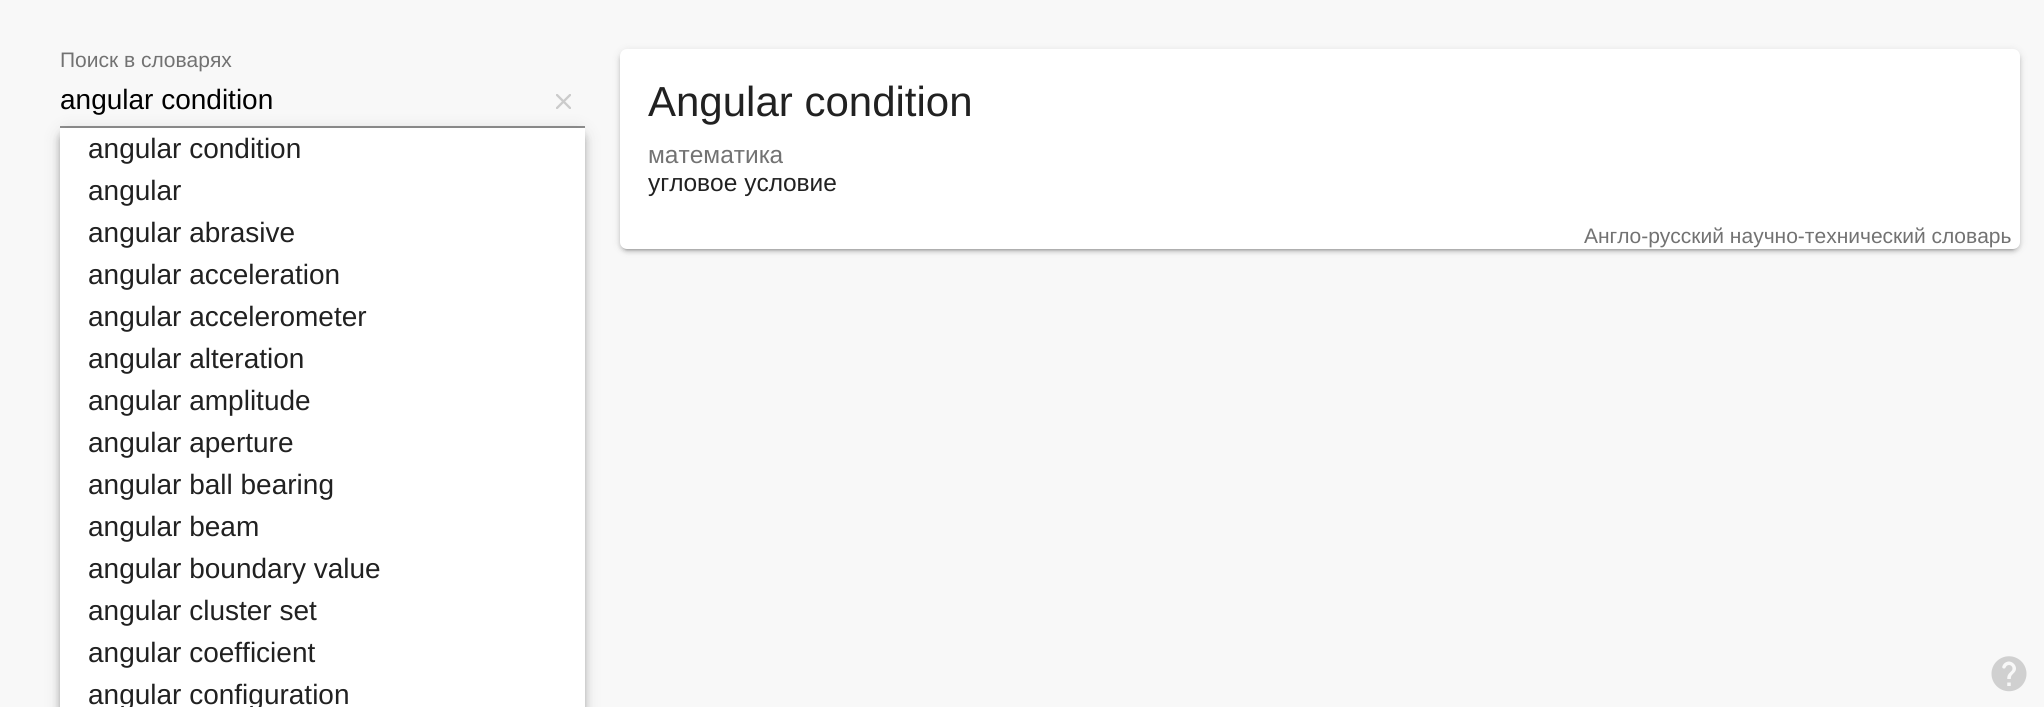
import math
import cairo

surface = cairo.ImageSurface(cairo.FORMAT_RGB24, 2044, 707)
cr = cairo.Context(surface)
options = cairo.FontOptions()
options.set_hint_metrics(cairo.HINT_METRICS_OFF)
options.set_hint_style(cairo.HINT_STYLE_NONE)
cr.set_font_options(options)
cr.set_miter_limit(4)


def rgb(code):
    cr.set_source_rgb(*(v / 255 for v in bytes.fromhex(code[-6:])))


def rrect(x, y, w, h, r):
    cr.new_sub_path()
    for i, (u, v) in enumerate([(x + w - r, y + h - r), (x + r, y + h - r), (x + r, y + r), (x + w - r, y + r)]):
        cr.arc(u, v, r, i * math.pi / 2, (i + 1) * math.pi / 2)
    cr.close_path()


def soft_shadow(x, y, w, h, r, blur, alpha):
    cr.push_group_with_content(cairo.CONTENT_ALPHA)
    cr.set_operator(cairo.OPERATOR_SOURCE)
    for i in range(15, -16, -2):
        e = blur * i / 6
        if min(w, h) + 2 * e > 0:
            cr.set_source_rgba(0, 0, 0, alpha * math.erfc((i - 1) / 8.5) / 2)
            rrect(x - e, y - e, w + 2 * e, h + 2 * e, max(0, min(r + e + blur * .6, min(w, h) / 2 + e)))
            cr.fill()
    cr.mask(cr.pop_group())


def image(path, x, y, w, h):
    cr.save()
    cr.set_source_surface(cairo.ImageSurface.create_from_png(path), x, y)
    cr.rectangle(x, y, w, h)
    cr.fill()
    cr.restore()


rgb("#f8f8f8")
cr.paint()
image("img/1.png", 556, 94, 15, 15)
rgb("#909090")
cr.rectangle(60, 126, 525, 2)
cr.fill()
rgb("#000000")
soft_shadow(620, 51, 1400, 199, 7, 4.5, 0.12)
soft_shadow(620, 53, 1400, 199, 7, 2, 0.14)
soft_shadow(623, 58, 1393, 192, 4, 1, 0.2)
rgb("#ffffff")
rrect(620, 49, 1400, 200, 7)
cr.fill()
image("img/2.png", 1991, 656, 36, 36)
rgb("#000000")
soft_shadow(60, 130, 525, 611, 7, 9, 0.12)
soft_shadow(60, 135, 525, 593, 7, 4.5, 0.14)
soft_shadow(61, 133, 522, 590, 5, 3.5, 0.2)
rgb("#ffffff")
cr.rectangle(60, 128, 525, 579)
cr.fill()
cr.select_font_face("Liberation Sans")
cr.set_font_size(21)
rgb("#727272")
cr.move_to(60, 67)
cr.show_text("Поиск в словарях")
cr.set_font_size(28)
rgb("#000000")
cr.move_to(60, 109)
cr.show_text("angular condition")
cr.set_font_size(42)
rgb("#212121")
cr.move_to(648, 116)
cr.show_text("Angular condition")
cr.set_font_size(24.5)
rgb("#727272")
cr.move_to(648, 163)
cr.show_text("математика")
rgb("#212121")
cr.move_to(648, 191)
cr.show_text("угловое условие")
cr.set_font_size(21)
rgb("#727272")
cr.move_to(1584, 243)
cr.show_text("Англо-русский научно-технический словарь")
cr.set_font_size(28)
rgb("#212121")
for x, y, s in [
    (88, 158, "angular condition"),
    (88, 200, "angular"),
    (88, 242, "angular abrasive"),
    (88, 284, "angular acceleration"),
    (88, 326, "angular accelerometer"),
    (88, 368, "angular alteration"),
    (88, 410, "angular amplitude"),
    (88, 452, "angular aperture"),
    (88, 494, "angular ball bearing"),
    (88, 536, "angular beam"),
    (88, 578, "angular boundary value"),
    (88, 620, "angular cluster set"),
    (88, 662, "angular coefficient"),
    (88, 704, "angular configuration"),
]:
    cr.move_to(x, y)
    cr.show_text(s)
surface.write_to_png("page.png")
